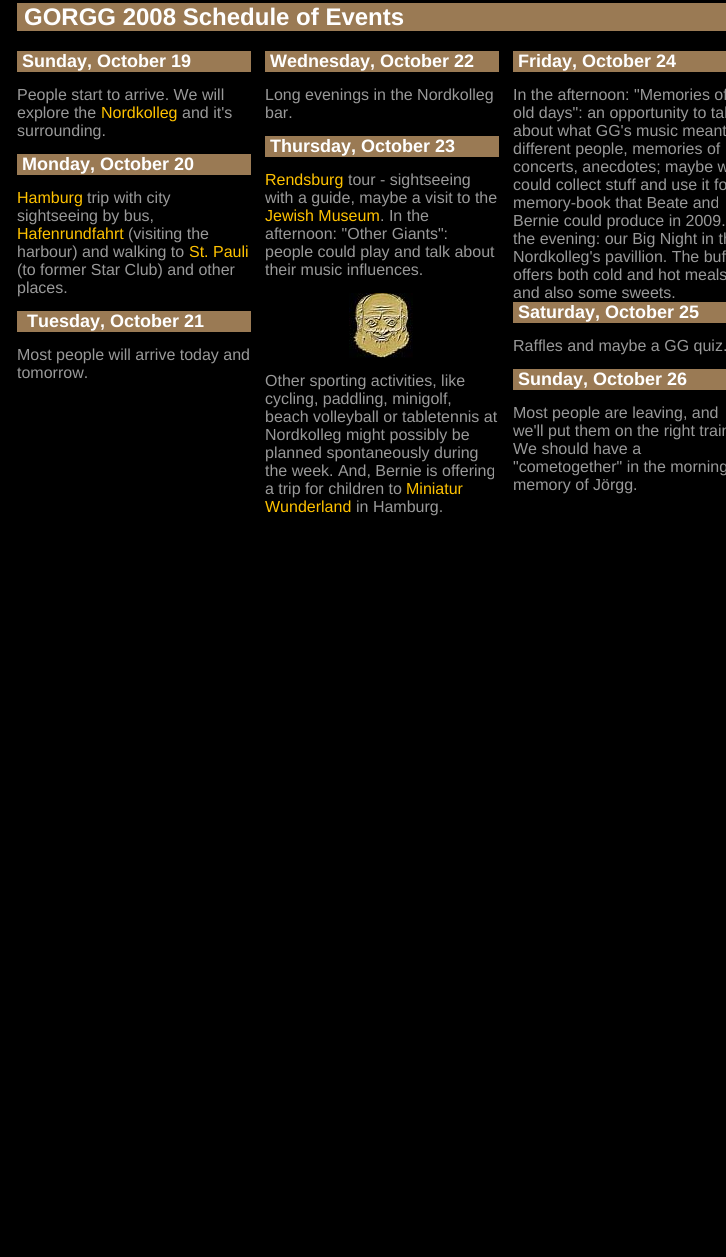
import math
import cairo

surface = cairo.ImageSurface(cairo.FORMAT_RGB24, 726, 1257)
cr = cairo.Context(surface)
options = cairo.FontOptions()
options.set_hint_metrics(cairo.HINT_METRICS_OFF)
options.set_hint_style(cairo.HINT_STYLE_NONE)
cr.set_font_options(options)
cr.set_miter_limit(4)


def rgb(code):
    cr.set_source_rgb(*(v / 255 for v in bytes.fromhex(code[-6:])))


def image(path, x, y, w, h):
    cr.save()
    cr.set_source_surface(cairo.ImageSurface.create_from_png(path), x, y)
    cr.rectangle(x, y, w, h)
    cr.fill()
    cr.restore()


rgb("#000000")
cr.paint()
for x, y, w, h, color in [
    (17, 3, 709, 28, "#9a7a54"),
    (17, 51, 234, 21, "#9a7a54"),
    (17, 154, 234, 21, "#9a7a54"),
    (17, 311, 234, 21, "#9a7a54"),
    (265, 51, 234, 21, "#9a7a54"),
    (265, 136, 234, 21, "#9a7a54"),
]:
    rgb(color)
    cr.rectangle(x, y, w, h)
    cr.fill()
image("img/1.png", 349, 293, 64, 65)
for x, y, w, h, color in [
    (513, 51, 213, 21, "#9a7a54"),
    (513, 302, 213, 21, "#9a7a54"),
    (513, 369, 213, 21, "#9a7a54"),
]:
    rgb(color)
    cr.rectangle(x, y, w, h)
    cr.fill()
cr.select_font_face("Liberation Sans", cairo.FONT_SLANT_NORMAL, cairo.FONT_WEIGHT_BOLD)
cr.set_font_size(24)
rgb("#ffffff")
cr.move_to(24, 25)
cr.show_text("GORGG 2008 Schedule of Events")
cr.set_font_size(18)
cr.move_to(22, 67)
cr.show_text("Sunday, October 19")
cr.select_font_face("Liberation Sans")
cr.set_font_size(16)
rgb("#999999")
cr.move_to(17, 100)
cr.show_text("People start to arrive. We will")
cr.move_to(17, 118)
cr.show_text("explore the")
rgb("#ffc200")
cr.move_to(101, 118)
cr.show_text("Nordkolleg")
rgb("#999999")
cr.move_to(182, 118)
cr.show_text("and it's")
cr.move_to(17, 136)
cr.show_text("surrounding.")
cr.select_font_face("Liberation Sans", cairo.FONT_SLANT_NORMAL, cairo.FONT_WEIGHT_BOLD)
cr.set_font_size(18)
rgb("#ffffff")
cr.move_to(22, 170)
cr.show_text("Monday, October 20")
cr.select_font_face("Liberation Sans")
cr.set_font_size(16)
rgb("#ffc200")
cr.move_to(17, 203)
cr.show_text("Hamburg")
rgb("#999999")
cr.move_to(87, 203)
cr.show_text("trip with city")
cr.move_to(17, 221)
cr.show_text("sightseeing by bus,")
rgb("#ffc200")
cr.move_to(17, 239)
cr.show_text("Hafenrundfahrt")
rgb("#999999")
cr.move_to(128, 239)
cr.show_text("(visiting the")
cr.move_to(17, 257)
cr.show_text("harbour) and walking to")
rgb("#ffc200")
cr.move_to(189, 257)
cr.show_text("St. Pauli")
rgb("#999999")
cr.move_to(17, 275)
cr.show_text("(to former Star Club) and other")
cr.move_to(17, 293)
cr.show_text("places.")
cr.select_font_face("Liberation Sans", cairo.FONT_SLANT_NORMAL, cairo.FONT_WEIGHT_BOLD)
cr.set_font_size(18)
rgb("#ffffff")
cr.move_to(27, 327)
cr.show_text("Tuesday, October 21")
cr.select_font_face("Liberation Sans")
cr.set_font_size(16)
rgb("#999999")
cr.move_to(17, 360)
cr.show_text("Most people will arrive today and")
cr.move_to(17, 378)
cr.show_text("tomorrow.")
cr.select_font_face("Liberation Sans", cairo.FONT_SLANT_NORMAL, cairo.FONT_WEIGHT_BOLD)
cr.set_font_size(18)
rgb("#ffffff")
cr.move_to(270, 67)
cr.show_text("Wednesday, October 22")
cr.select_font_face("Liberation Sans")
cr.set_font_size(16)
rgb("#999999")
cr.move_to(265, 100)
cr.show_text("Long evenings in the Nordkolleg")
cr.move_to(265, 118)
cr.show_text("bar.")
cr.select_font_face("Liberation Sans", cairo.FONT_SLANT_NORMAL, cairo.FONT_WEIGHT_BOLD)
cr.set_font_size(18)
rgb("#ffffff")
cr.move_to(270, 152)
cr.show_text("Thursday, October 23")
cr.select_font_face("Liberation Sans")
cr.set_font_size(16)
rgb("#ffc200")
cr.move_to(265, 185)
cr.show_text("Rendsburg")
rgb("#999999")
cr.move_to(348, 185)
cr.show_text("tour - sightseeing")
cr.move_to(265, 203)
cr.show_text("with a guide, maybe a visit to the")
rgb("#ffc200")
cr.move_to(265, 221)
cr.show_text("Jewish Museum")
rgb("#999999")
for x, y, s in [
    (380, 221, ". In the"),
    (265, 239, "afternoon: \"Other Giants\":"),
    (265, 257, "people could play and talk about"),
    (265, 275, "their music influences."),
    (265, 386, "Other sporting activities, like"),
    (265, 404, "cycling, paddling, minigolf,"),
    (265, 422, "beach volleyball or tabletennis at"),
    (265, 440, "Nordkolleg might possibly be"),
    (265, 458, "planned spontaneously during"),
    (265, 476, "the week. And, Bernie is offering"),
    (265, 494, "a trip for children to"),
]:
    cr.move_to(x, y)
    cr.show_text(s)
rgb("#ffc200")
cr.move_to(406, 494)
cr.show_text("Miniatur")
cr.move_to(265, 512)
cr.show_text("Wunderland")
rgb("#999999")
cr.move_to(356, 512)
cr.show_text("in Hamburg.")
cr.select_font_face("Liberation Sans", cairo.FONT_SLANT_NORMAL, cairo.FONT_WEIGHT_BOLD)
cr.set_font_size(18)
rgb("#ffffff")
cr.move_to(518, 67)
cr.show_text("Friday, October 24")
cr.select_font_face("Liberation Sans")
cr.set_font_size(16)
rgb("#999999")
for x, y, s in [
    (513, 100, "In the afternoon: \"Memories of"),
    (513, 118, "old days\": an opportunity to tal"),
    (513, 136, "about what GG's music meant"),
    (513, 154, "different people, memories of"),
    (513, 172, "concerts, anecdotes; maybe w"),
    (513, 190, "could collect stuff and use it fo"),
    (513, 208, "memory-book that Beate and"),
    (513, 226, "Bernie could produce in 2009."),
    (513, 244, "the evening: our Big Night in th"),
    (513, 262, "Nordkolleg's pavillion. The buf"),
    (513, 280, "offers both cold and hot meals"),
    (513, 298, "and also some sweets."),
]:
    cr.move_to(x, y)
    cr.show_text(s)
cr.select_font_face("Liberation Sans", cairo.FONT_SLANT_NORMAL, cairo.FONT_WEIGHT_BOLD)
cr.set_font_size(18)
rgb("#ffffff")
cr.move_to(518, 318)
cr.show_text("Saturday, October 25")
cr.select_font_face("Liberation Sans")
cr.set_font_size(16)
rgb("#999999")
cr.move_to(513, 351)
cr.show_text("Raffles and maybe a GG quiz.")
cr.select_font_face("Liberation Sans", cairo.FONT_SLANT_NORMAL, cairo.FONT_WEIGHT_BOLD)
cr.set_font_size(18)
rgb("#ffffff")
cr.move_to(518, 385)
cr.show_text("Sunday, October 26")
cr.select_font_face("Liberation Sans")
cr.set_font_size(16)
rgb("#999999")
for x, y, s in [
    (513, 418, "Most people are leaving, and"),
    (513, 436, "we'll put them on the right train"),
    (513, 454, "We should have a"),
    (513, 472, "\"cometogether\" in the morning"),
    (513, 490, "memory of Jörgg."),
]:
    cr.move_to(x, y)
    cr.show_text(s)
surface.write_to_png("page.png")
